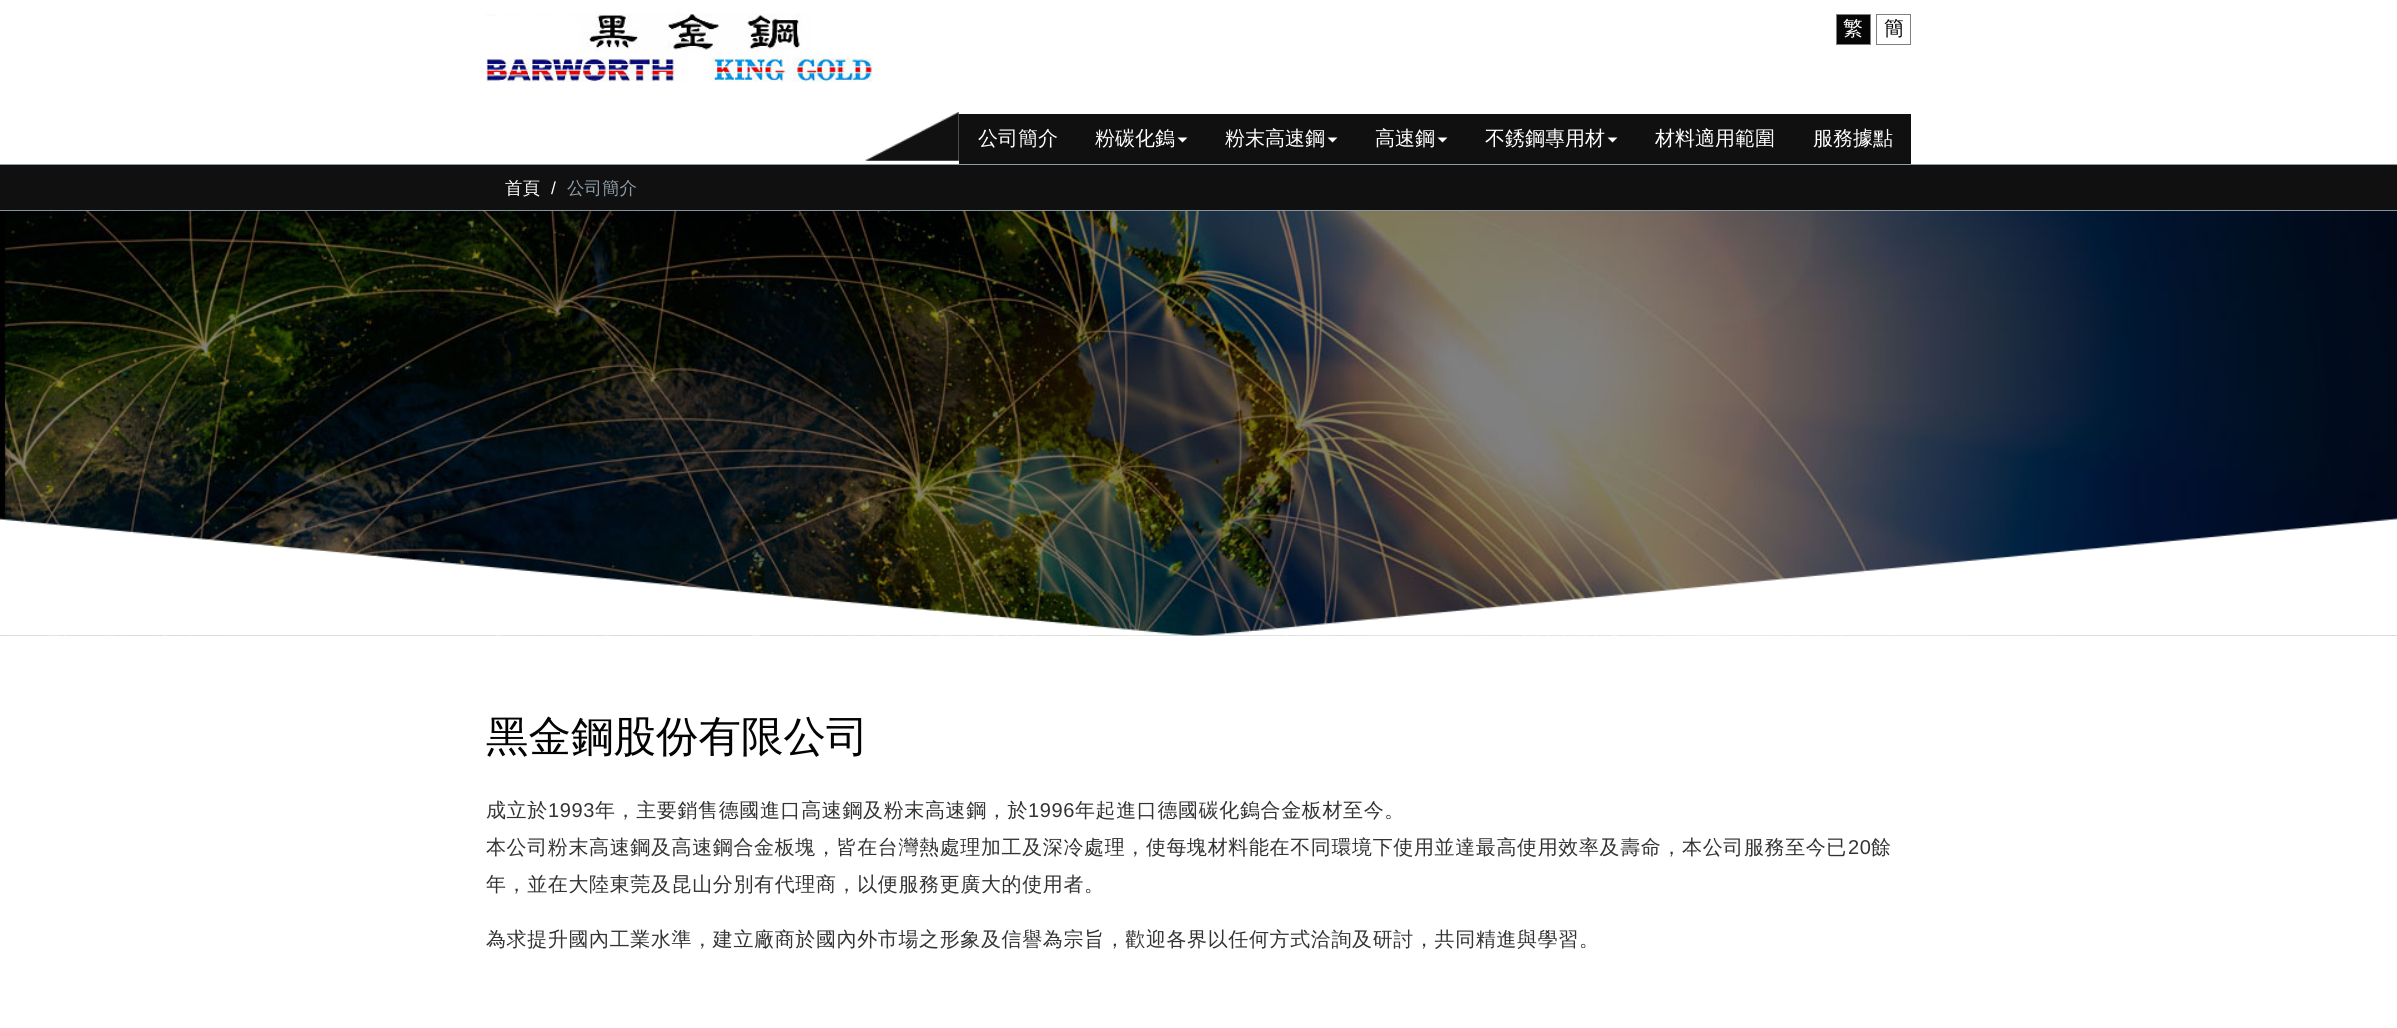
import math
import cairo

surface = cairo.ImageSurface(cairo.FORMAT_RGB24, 2397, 1028)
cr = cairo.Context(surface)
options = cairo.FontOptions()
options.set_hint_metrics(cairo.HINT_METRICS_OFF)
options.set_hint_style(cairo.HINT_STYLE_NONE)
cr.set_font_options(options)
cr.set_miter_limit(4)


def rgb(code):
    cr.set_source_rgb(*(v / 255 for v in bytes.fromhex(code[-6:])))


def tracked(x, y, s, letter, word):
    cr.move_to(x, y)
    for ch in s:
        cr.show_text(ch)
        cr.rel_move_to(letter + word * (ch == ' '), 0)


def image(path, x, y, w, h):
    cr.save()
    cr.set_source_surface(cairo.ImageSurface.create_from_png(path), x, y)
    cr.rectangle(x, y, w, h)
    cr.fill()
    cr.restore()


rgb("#ffffff")
cr.paint()
image("img/1.png", 486, 13, 387, 69)
rgb("#060606")
cr.rectangle(1836.5, 14.5, 34, 30)
cr.fill_preserve()
rgb("#808080")
cr.set_line_width(1)
cr.stroke()
cr.rectangle(1876.5, 14.5, 34, 30)
cr.stroke()
rgb("#101010")
cr.rectangle(959, 114, 952, 50)
cr.fill()
image("img/2.png", 865, 112, 94, 49)
rgb("#ffffff")
cr.new_path()
cr.move_to(1177.5, 137.5)
cr.line_to(1187.5, 137.5)
cr.line_to(1182.5, 142.5)
cr.close_path()
cr.fill()
cr.new_path()
cr.move_to(1327.5, 137.5)
cr.line_to(1337.5, 137.5)
cr.line_to(1332.5, 142.5)
cr.close_path()
cr.fill()
cr.new_path()
cr.move_to(1437.5, 137.5)
cr.line_to(1447.5, 137.5)
cr.line_to(1442.5, 142.5)
cr.close_path()
cr.fill()
cr.new_path()
cr.move_to(1607.5, 137.5)
cr.line_to(1617.5, 137.5)
cr.line_to(1612.5, 142.5)
cr.close_path()
cr.fill()
for x, y, w, h, color in [
    (0, 165, 2397, 45, "#101010"),
    (0, 164, 2397, 1, "#8d9da8"),
    (0, 210, 2397, 1, "#8d9da8"),
]:
    rgb(color)
    cr.rectangle(x, y, w, h)
    cr.fill()
image("img/3.png", 0, 210, 2397, 426)
image("img/4.png", 0, 518, 2397, 118)
cr.select_font_face("WenQuanYi Zen Hei Medium")
cr.set_font_size(20)
rgb("#ffffff")
cr.move_to(1843, 35)
cr.show_text("繁")
rgb("#030303")
cr.move_to(1884, 35)
cr.show_text("簡")
rgb("#ffffff")
for x, y, s in [
    (978, 145, "公司簡介"),
    (1095, 145, "粉碳化鎢"),
    (1225, 145, "粉末高速鋼"),
    (1375, 145, "高速鋼"),
    (1485, 145, "不銹鋼專用材"),
    (1655, 145, "材料適用範圍"),
    (1813, 145, "服務據點"),
]:
    cr.move_to(x, y)
    cr.show_text(s)
cr.set_font_size(17.5)
cr.move_to(505, 194)
cr.show_text("首頁")
cr.select_font_face("Liberation Sans")
cr.move_to(551, 194)
cr.show_text("/")
cr.select_font_face("WenQuanYi Zen Hei Medium")
rgb("#8d9da8")
cr.move_to(567, 194)
cr.show_text("公司簡介")
cr.set_font_size(42.5)
rgb("#030303")
cr.move_to(486, 751)
cr.show_text("黑金鋼股份有限公司")
cr.set_font_size(20)
rgb("#333333")
tracked(486, 817, "成立於", 0.62, 0)
cr.select_font_face("Liberation Sans")
tracked(548, 817, "1993", 0.62, 0)
cr.select_font_face("WenQuanYi Zen Hei Medium")
tracked(595, 817, "年，主要銷售德國進口高速鋼及粉末高速鋼，於", 0.62, 0)
cr.select_font_face("Liberation Sans")
tracked(1028, 817, "1996", 0.62, 0)
cr.select_font_face("WenQuanYi Zen Hei Medium")
tracked(1075, 817, "年起進口德國碳化鎢合金板材至今。", 0.62, 0)
tracked(486, 854, "本公司粉末高速鋼及高速鋼合金板塊，皆在台灣熱處理加工及深冷處理，使每塊材料能在不同環境下使用並達最高使用效率及壽命，本公司服務至今已", 0.62, 0)
cr.select_font_face("Liberation Sans")
tracked(1848, 854, "20", 0.62, 0)
cr.select_font_face("WenQuanYi Zen Hei Medium")
for x, y, s in [
    (1871, 854, "餘"),
    (486, 891, "年，並在大陸東莞及昆山分別有代理商，以便服務更廣大的使用者。"),
    (486, 946, "為求提升國內工業水準，建立廠商於國內外市場之形象及信譽為宗旨，歡迎各界以任何方式洽詢及研討，共同精進與學習。"),
]:
    tracked(x, y, s, 0.62, 0)
surface.write_to_png("page.png")
